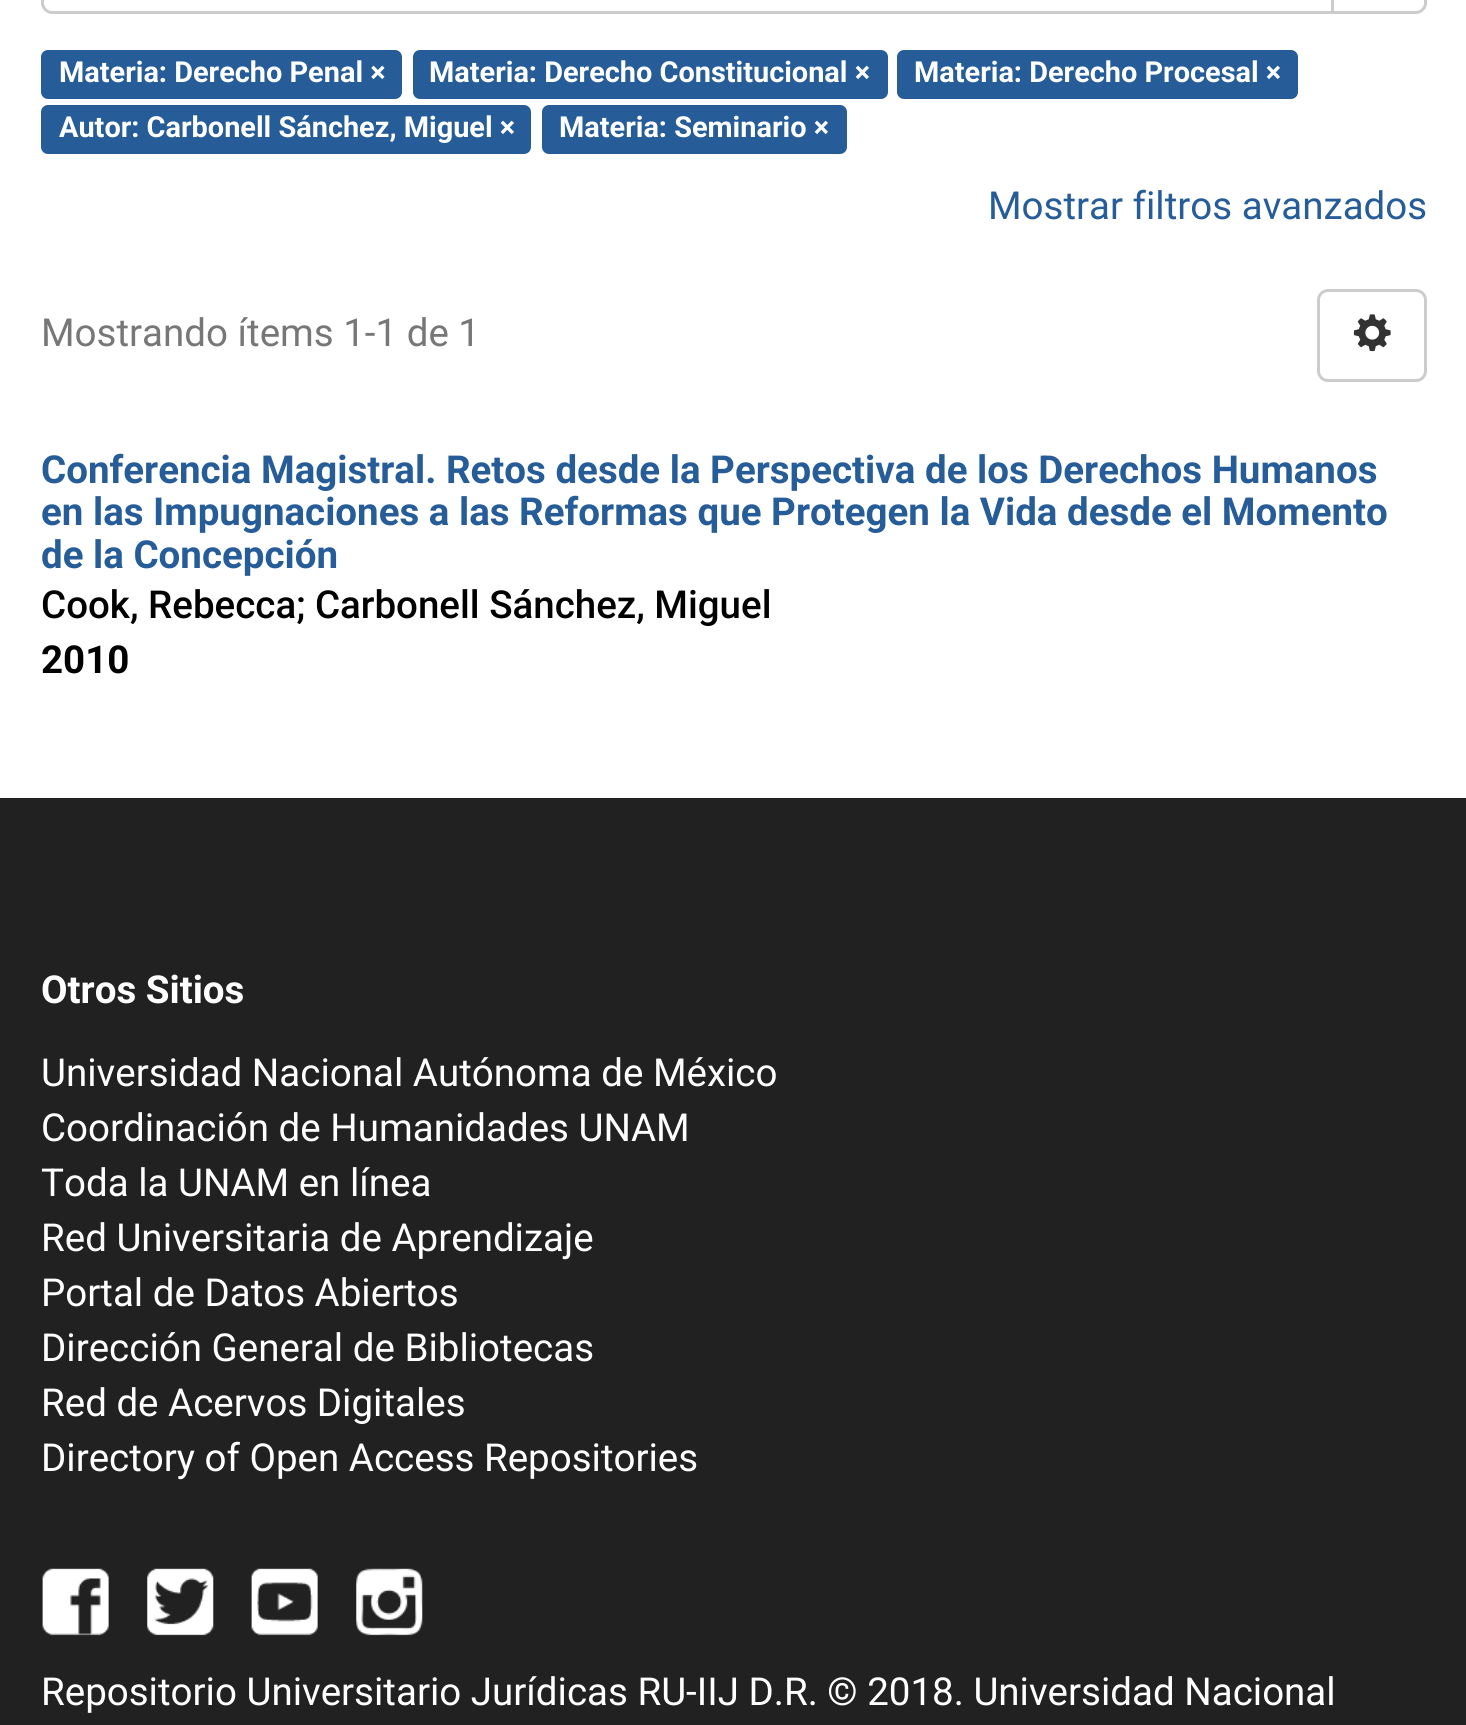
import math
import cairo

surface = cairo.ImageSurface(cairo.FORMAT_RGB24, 1466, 1725)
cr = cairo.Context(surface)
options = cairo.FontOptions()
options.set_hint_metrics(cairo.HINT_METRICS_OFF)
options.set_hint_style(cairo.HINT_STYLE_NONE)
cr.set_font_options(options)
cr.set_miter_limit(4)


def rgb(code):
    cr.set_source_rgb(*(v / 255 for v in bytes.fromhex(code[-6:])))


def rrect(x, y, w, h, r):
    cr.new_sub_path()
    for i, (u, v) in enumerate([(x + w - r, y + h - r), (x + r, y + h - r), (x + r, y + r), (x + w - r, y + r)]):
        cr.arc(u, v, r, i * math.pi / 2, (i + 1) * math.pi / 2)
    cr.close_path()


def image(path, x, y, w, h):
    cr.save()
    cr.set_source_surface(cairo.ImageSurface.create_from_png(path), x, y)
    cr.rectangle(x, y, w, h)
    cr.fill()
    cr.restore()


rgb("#ffffff")
cr.paint()
cr.new_path()
cr.move_to(1332.5, -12.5)
cr.line_to(1416, -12.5)
cr.curve_to(1421, -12.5, 1425.5, -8, 1425.5, -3)
cr.line_to(1425.5, 3)
cr.curve_to(1425.5, 8, 1421, 12.5, 1416, 12.5)
cr.line_to(1332.5, 12.5)
cr.close_path()
rgb("#cccccc")
cr.set_line_width(3)
cr.stroke()
rgb("#ffffff")
cr.new_path()
cr.move_to(52, -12.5)
cr.line_to(1332.5, -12.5)
cr.line_to(1332.5, 12.5)
cr.line_to(52, 12.5)
cr.curve_to(47, 12.5, 42.5, 8, 42.5, 3)
cr.line_to(42.5, -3)
cr.curve_to(42.5, -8, 47, -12.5, 52, -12.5)
cr.close_path()
cr.fill_preserve()
rgb("#cccccc")
cr.stroke()
rgb("#265d99")
rrect(41, 50, 361, 49, 7)
cr.fill()
rrect(413, 50, 475, 49, 7)
cr.fill()
rrect(897, 50, 401, 49, 7)
cr.fill()
rrect(41, 105, 490, 49, 7)
cr.fill()
rrect(542, 105, 305, 49, 7)
cr.fill()
rrect(1318.5, 290.5, 107, 90, 9.5)
rgb("#cccccc")
cr.stroke()
image("img/1.png", 1353, 314, 38, 38)
rgb("#212121")
cr.rectangle(0, 798, 1466, 927)
cr.fill()
image("img/2.png", 42, 1568, 67, 68)
image("img/3.png", 147, 1568, 67, 68)
image("img/4.png", 251, 1568, 67, 68)
image("img/5.png", 356, 1568, 67, 68)
cr.select_font_face("Roboto", cairo.FONT_SLANT_NORMAL, cairo.FONT_WEIGHT_BOLD)
cr.set_font_size(28.9)
rgb("#ffffff")
for x, y, s in [
    (59, 82, "Materia: Derecho Penal ×"),
    (429, 82, "Materia: Derecho Constitucional ×"),
    (914, 82, "Materia: Derecho Procesal ×"),
    (59, 137, "Autor: Carbonell Sánchez, Miguel ×"),
    (559, 137, "Materia: Seminario ×"),
]:
    cr.move_to(x, y)
    cr.show_text(s)
cr.select_font_face("Roboto")
cr.set_font_size(38.5)
rgb("#265d99")
cr.move_to(988, 219)
cr.show_text("Mostrar filtros avanzados")
rgb("#777777")
cr.move_to(41, 346)
cr.show_text("Mostrando ítems 1-1 de 1")
cr.select_font_face("Roboto", cairo.FONT_SLANT_NORMAL, cairo.FONT_WEIGHT_BOLD)
rgb("#265d99")
for x, y, s in [
    (41, 483, "Conferencia Magistral. Retos desde la Perspectiva de los Derechos Humanos"),
    (41, 525, "en las Impugnaciones a las Reformas que Protegen la Vida desde el Momento"),
    (41, 568, "de la Concepción"),
]:
    cr.move_to(x, y)
    cr.show_text(s)
cr.select_font_face("Roboto Medium")
rgb("#000000")
cr.move_to(41, 618)
cr.show_text("Cook, Rebecca; Carbonell Sánchez, Miguel")
cr.select_font_face("Roboto", cairo.FONT_SLANT_NORMAL, cairo.FONT_WEIGHT_BOLD)
cr.move_to(41, 673)
cr.show_text("2010")
rgb("#ffffff")
cr.move_to(41, 1003)
cr.show_text("Otros Sitios")
cr.select_font_face("Roboto")
for x, y, s in [
    (41, 1086, "Universidad Nacional Autónoma de México"),
    (41, 1141, "Coordinación de Humanidades UNAM"),
    (41, 1196, "Toda la UNAM en línea"),
    (41, 1251, "Red Universitaria de Aprendizaje"),
    (41, 1306, "Portal de Datos Abiertos"),
    (41, 1361, "Dirección General de Bibliotecas"),
    (41, 1416, "Red de Acervos Digitales"),
    (41, 1471, "Directory of Open Access Repositories"),
    (41, 1705, "Repositorio Universitario Jurídicas RU-IIJ D.R. © 2018. Universidad Nacional"),
]:
    cr.move_to(x, y)
    cr.show_text(s)
surface.write_to_png("page.png")
